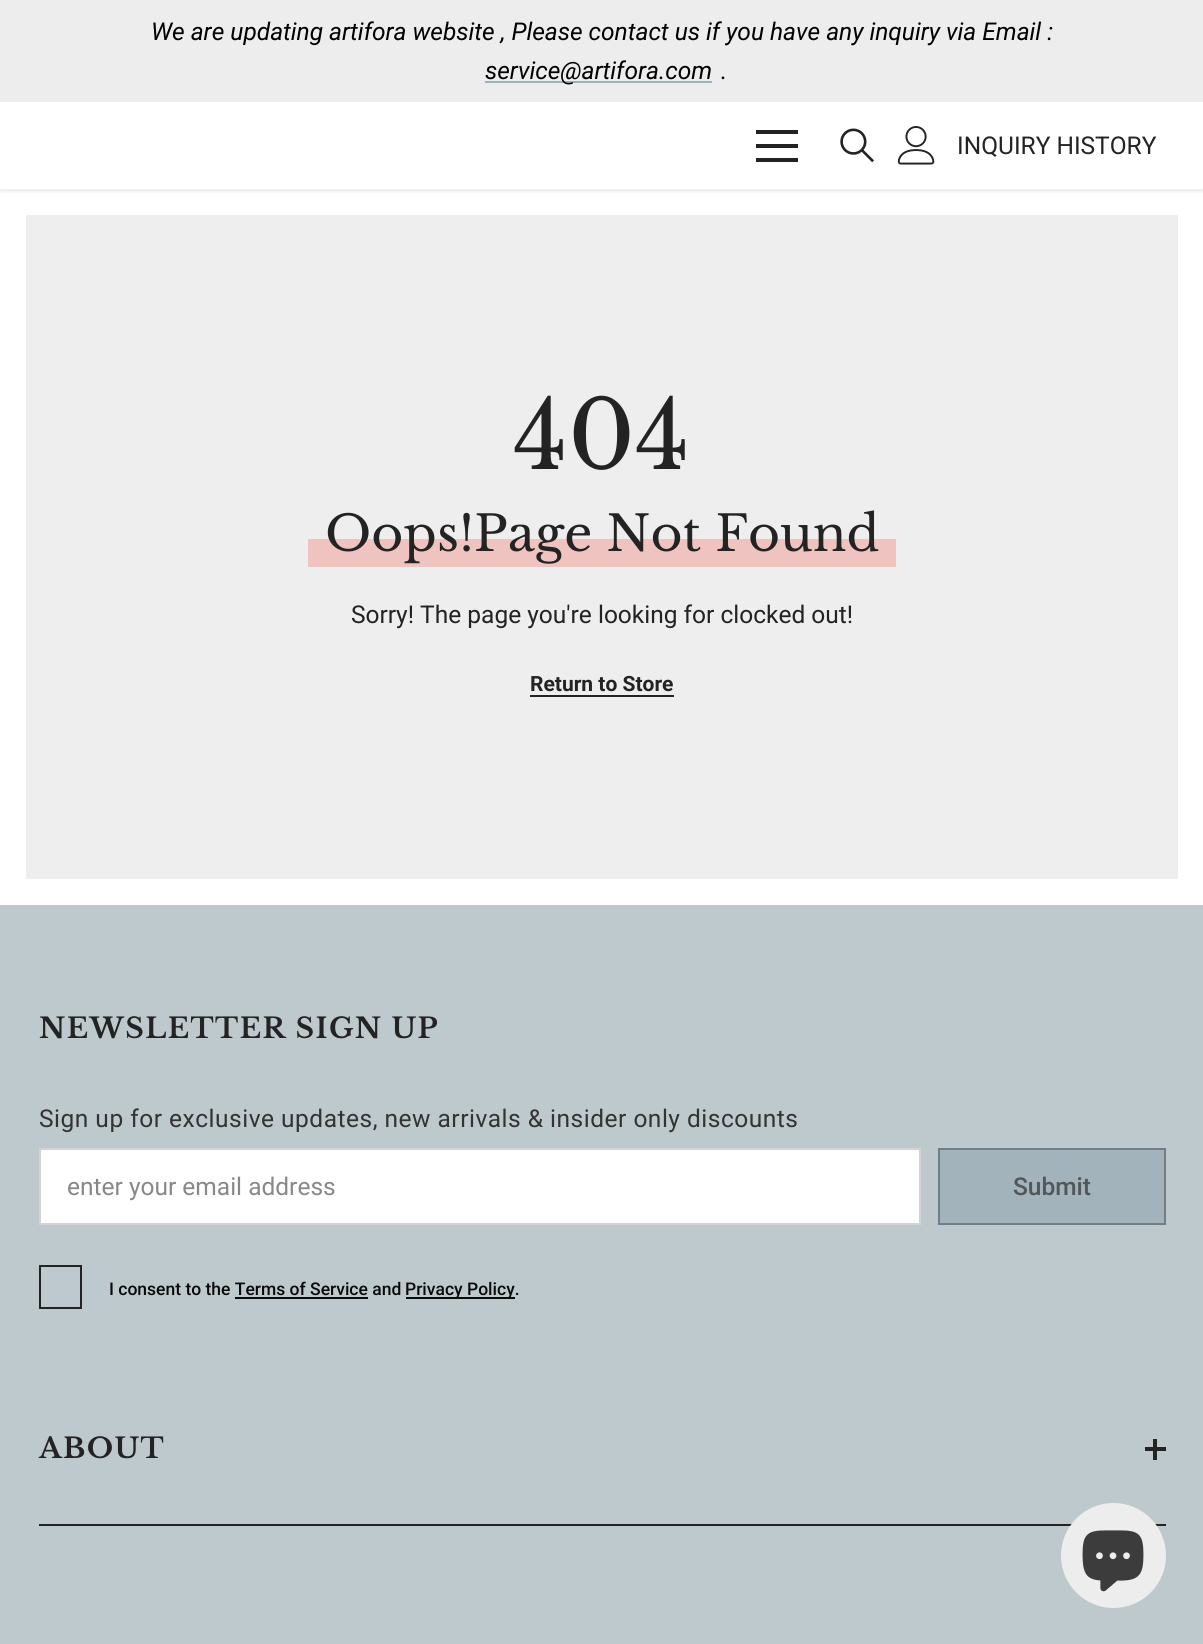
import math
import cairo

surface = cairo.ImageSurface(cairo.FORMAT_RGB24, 1203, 1644)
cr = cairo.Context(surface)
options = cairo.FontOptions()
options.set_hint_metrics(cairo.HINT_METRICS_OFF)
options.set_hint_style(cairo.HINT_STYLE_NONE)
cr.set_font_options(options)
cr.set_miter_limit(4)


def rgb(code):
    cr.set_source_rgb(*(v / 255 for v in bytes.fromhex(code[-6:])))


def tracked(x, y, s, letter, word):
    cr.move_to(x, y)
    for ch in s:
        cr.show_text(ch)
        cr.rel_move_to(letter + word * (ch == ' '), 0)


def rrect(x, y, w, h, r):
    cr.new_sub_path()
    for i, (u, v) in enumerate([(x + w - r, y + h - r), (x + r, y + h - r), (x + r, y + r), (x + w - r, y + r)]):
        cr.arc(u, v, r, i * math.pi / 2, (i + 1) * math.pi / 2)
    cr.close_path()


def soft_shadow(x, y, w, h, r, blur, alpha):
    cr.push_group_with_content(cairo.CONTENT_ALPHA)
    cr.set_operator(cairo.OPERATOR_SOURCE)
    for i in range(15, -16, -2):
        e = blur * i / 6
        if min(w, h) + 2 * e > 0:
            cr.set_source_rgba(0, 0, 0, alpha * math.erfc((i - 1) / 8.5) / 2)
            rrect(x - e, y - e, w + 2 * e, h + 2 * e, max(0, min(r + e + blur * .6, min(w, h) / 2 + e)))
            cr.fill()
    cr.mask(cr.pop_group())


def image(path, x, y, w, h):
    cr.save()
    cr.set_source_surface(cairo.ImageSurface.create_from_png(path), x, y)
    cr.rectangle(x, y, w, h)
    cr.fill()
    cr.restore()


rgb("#ffffff")
cr.paint()
rgb("#ededed")
cr.rectangle(0, 0, 1203, 102)
cr.fill()
rgb("#95b4bb")
cr.rectangle(485, 81, 227, 2)
cr.fill()
cr.save()
cr.rectangle(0, 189, 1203, 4)
cr.clip()
rgb("#000000")
soft_shadow(0, 103, 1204, 88, 0, 2.5, 0.1)
cr.restore()
for x, y, w, h, color in [
    (756, 144, 42, 4, "#232323"),
    (756, 130, 42, 4, "#232323"),
    (756, 158, 42, 4, "#232323"),
]:
    rgb(color)
    cr.rectangle(x, y, w, h)
    cr.fill()
image("img/1.png", 840, 128, 34, 35)
image("img/2.png", 898, 126, 37, 39)
for x, y, w, h, color in [
    (26, 215, 1152, 664, "#eeeeee"),
    (308, 539, 588, 28, "#efc3c0"),
    (530, 695, 144, 2, "#232323"),
    (0, 905, 1203, 739, "#bec9ce"),
]:
    rgb(color)
    cr.rectangle(x, y, w, h)
    cr.fill()
rgb("#ffffff")
cr.rectangle(40, 1149, 880, 75)
cr.fill_preserve()
rgb("#d3d3d3")
cr.stroke()
rgb("#a2b3bb")
cr.rectangle(939, 1149, 226, 75)
cr.fill_preserve()
rgb("#717e85")
cr.stroke()
cr.rectangle(40, 1266, 41, 42)
rgb("#232323")
cr.stroke()
for x, y, w, h, color in [
    (406, 1297, 109, 2, "#090909"),
    (235, 1297, 133, 2, "#090909"),
    (39, 1524, 1127, 2, "#232323"),
    (1153, 1439, 4, 21, "#232323"),
    (1145, 1447, 21, 4, "#232323"),
]:
    rgb(color)
    cr.rectangle(x, y, w, h)
    cr.fill()
rgb("#ededed")
cr.arc(1113.5, 1555.5, 52.5, 0, 2 * math.pi)
cr.fill()
image("img/3.png", 1082, 1530, 62, 62)
cr.select_font_face("Roboto", cairo.FONT_SLANT_ITALIC)
cr.set_font_size(24.5)
rgb("#000000")
for x, y, s in [
    (151, 40, "We are updating artifora website , Please contact us if you have any inquiry via Email :"),
    (485, 79, "service@artifora.com"),
    (721, 79, "."),
]:
    cr.move_to(x, y)
    cr.show_text(s)
cr.select_font_face("Roboto")
rgb("#232323")
cr.move_to(957, 154)
cr.show_text("INQUIRY HISTORY")
cr.select_font_face("Libre Baskerville")
cr.set_font_size(94)
cr.move_to(513, 469)
cr.show_text("404")
cr.set_font_size(49)
cr.move_to(325, 551)
cr.show_text("Oops!Page Not Found")
cr.select_font_face("Roboto")
cr.set_font_size(24.5)
cr.move_to(351, 623)
cr.show_text("Sorry! The page you're looking for clocked out!")
cr.select_font_face("Roboto", cairo.FONT_SLANT_NORMAL, cairo.FONT_WEIGHT_BOLD)
cr.set_font_size(21)
cr.move_to(530, 691)
cr.show_text("Return to Store")
cr.select_font_face("Libre Baskerville", cairo.FONT_SLANT_NORMAL, cairo.FONT_WEIGHT_BOLD)
cr.set_font_size(28)
tracked(39, 1038, "NEWSLETTER SIGN UP", 1.4, 0)
cr.select_font_face("Roboto")
cr.set_font_size(24.5)
rgb("#333333")
tracked(39, 1127, "Sign up for exclusive updates, new arrivals & insider only discounts", 0.5, 0)
rgb("#888888")
cr.move_to(67, 1195)
cr.show_text("enter your email address")
cr.select_font_face("Roboto Medium")
rgb("#515658")
cr.move_to(1013, 1195)
cr.show_text("Submit")
cr.set_font_size(17.5)
rgb("#090909")
cr.move_to(109, 1295)
cr.show_text("I consent to the Terms of Service and")
cr.move_to(405, 1295)
cr.show_text("Privacy Policy.")
cr.select_font_face("Libre Baskerville", cairo.FONT_SLANT_NORMAL, cairo.FONT_WEIGHT_BOLD)
cr.set_font_size(28)
rgb("#232323")
tracked(39, 1458, "ABOUT", 1.4, 0)
surface.write_to_png("page.png")
